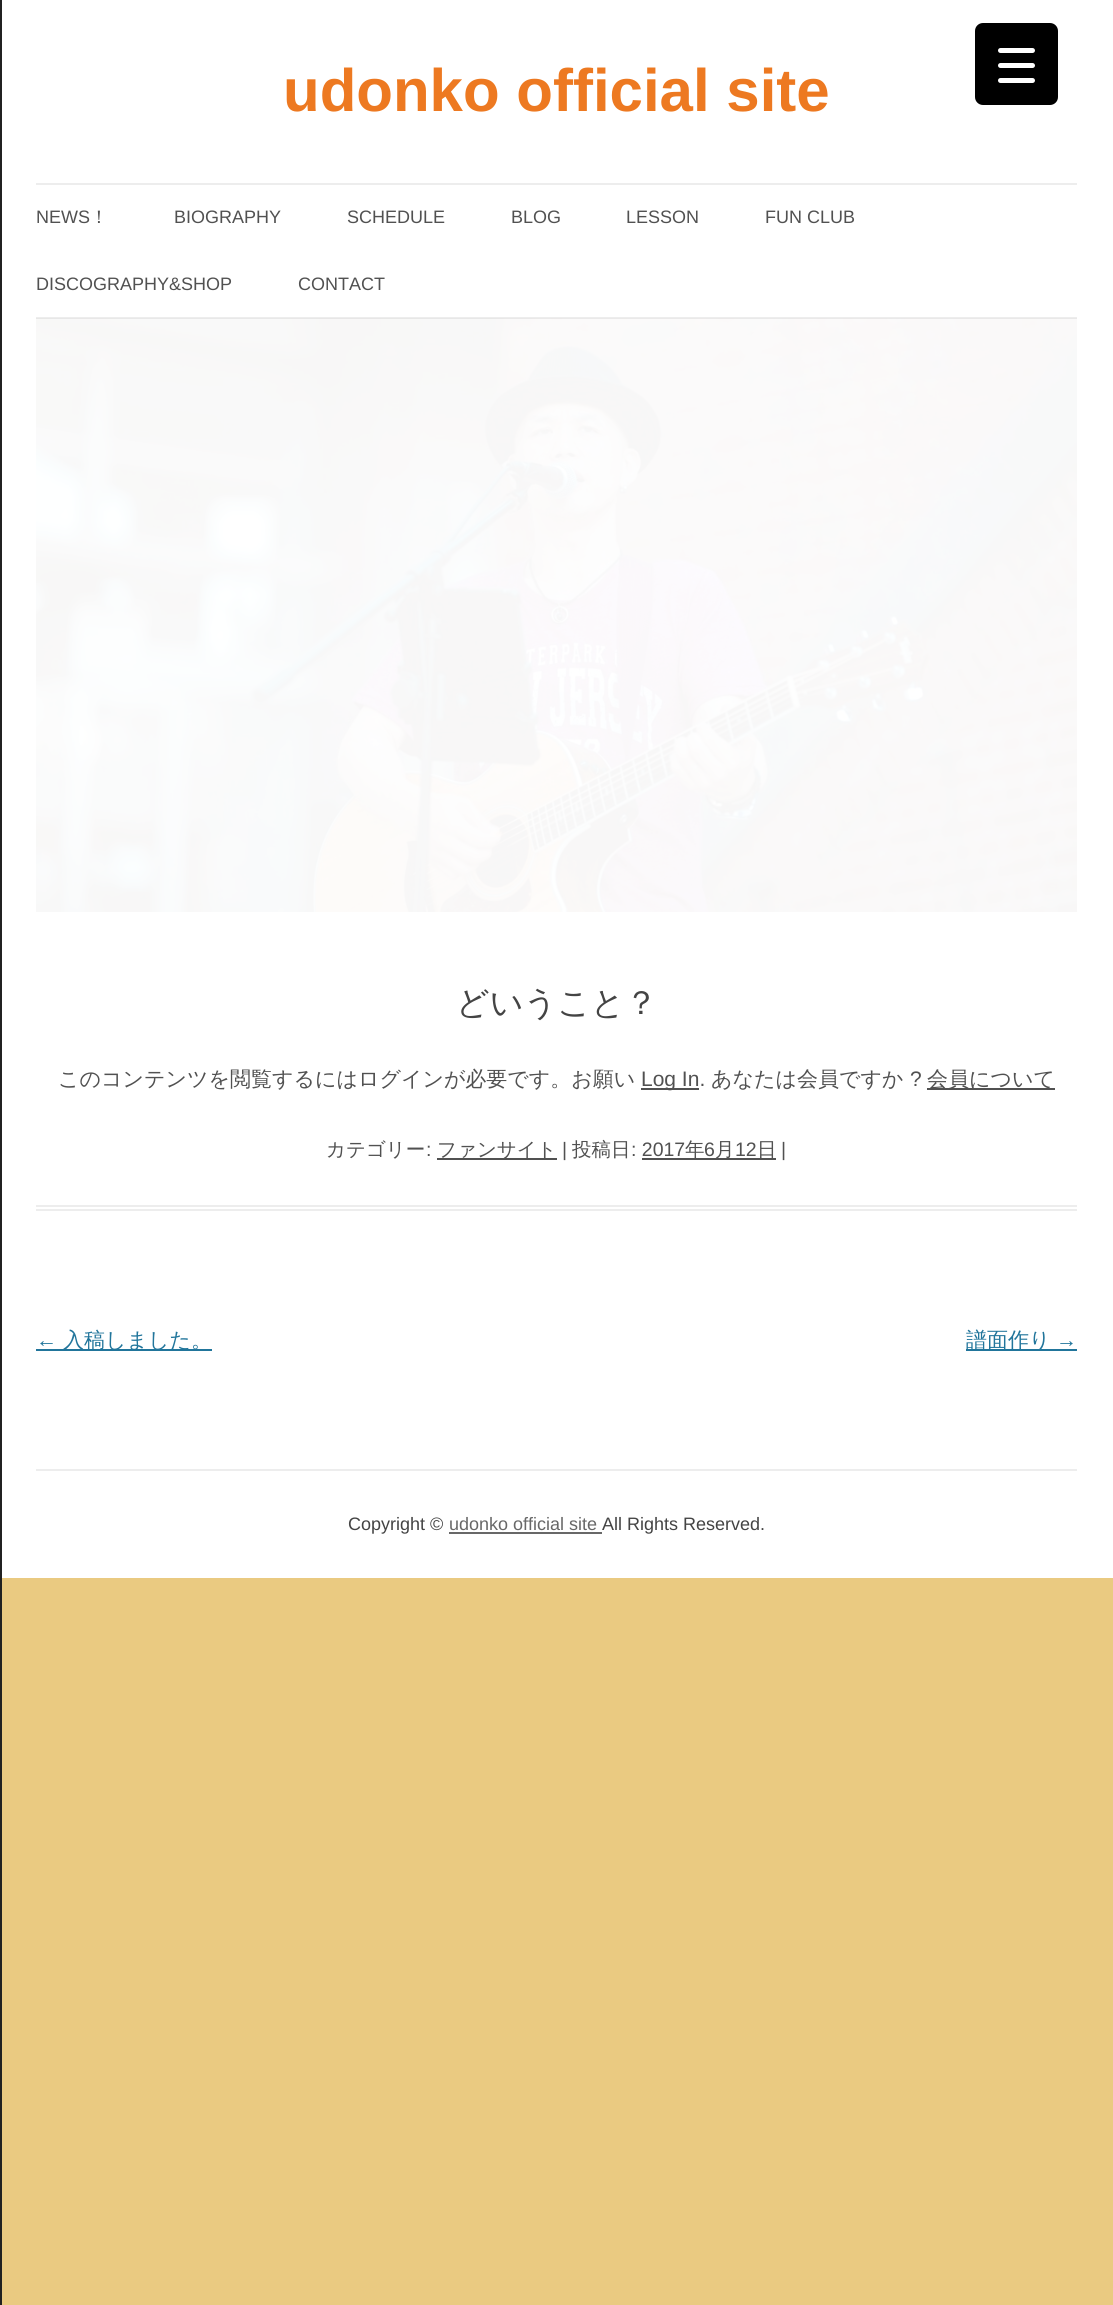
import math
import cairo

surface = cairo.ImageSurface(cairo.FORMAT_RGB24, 1113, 2305)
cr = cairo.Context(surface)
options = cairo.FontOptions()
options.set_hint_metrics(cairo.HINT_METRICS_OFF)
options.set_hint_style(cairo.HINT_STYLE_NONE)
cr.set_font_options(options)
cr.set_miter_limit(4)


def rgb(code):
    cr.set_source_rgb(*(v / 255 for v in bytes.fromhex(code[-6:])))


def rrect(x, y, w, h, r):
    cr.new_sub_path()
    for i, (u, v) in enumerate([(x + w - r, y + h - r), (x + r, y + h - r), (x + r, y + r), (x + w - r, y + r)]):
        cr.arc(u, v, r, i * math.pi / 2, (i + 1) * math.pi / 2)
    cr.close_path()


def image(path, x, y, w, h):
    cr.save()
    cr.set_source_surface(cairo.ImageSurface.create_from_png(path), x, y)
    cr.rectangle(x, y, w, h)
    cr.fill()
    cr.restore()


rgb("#eaca81")
cr.paint()
rgb("#212121")
cr.rectangle(0, 0, 2, 2305)
cr.fill()
rgb("#ffffff")
cr.rectangle(2, 0, 1111, 1578)
cr.fill()
rgb("#000000")
rrect(975, 23, 83, 82, 8)
cr.fill()
rgb("#ffffff")
rrect(998, 63, 37, 5, 2.5)
cr.fill()
rrect(998, 48, 37, 5, 2.5)
cr.fill()
rrect(998, 78, 37, 5, 2.5)
cr.fill()
rgb("#ededed")
cr.rectangle(36, 183, 1041, 2)
cr.fill()
cr.rectangle(36, 317, 1041, 2)
cr.fill()
image("img/1.png", 36, 318, 1041, 594)
for x, y, w, h, color in [
    (36, 1205, 1041, 2, "#ededed"),
    (36, 1209, 1041, 2, "#ededed"),
    (641, 1088, 58, 2, "#515151"),
    (927, 1088, 128, 2, "#515151"),
    (437, 1158, 120, 2, "#515151"),
    (642, 1158, 134, 2, "#515151"),
    (36, 1349, 176, 2, "#21759b"),
    (966, 1349, 111, 2, "#21759b"),
    (36, 1469, 1041, 2, "#ededed"),
    (449, 1532, 153, 2, "#686868"),
]:
    rgb(color)
    cr.rectangle(x, y, w, h)
    cr.fill()
cr.select_font_face("Liberation Sans", cairo.FONT_SLANT_NORMAL, cairo.FONT_WEIGHT_BOLD)
cr.set_font_size(60)
rgb("#ed7921")
cr.move_to(283, 111)
cr.show_text("udonko official site")
cr.select_font_face("Liberation Sans")
cr.set_font_size(18)
rgb("#515151")
cr.move_to(36, 223)
cr.show_text("NEWS")
cr.select_font_face("WenQuanYi Zen Hei Medium")
cr.move_to(90, 223)
cr.show_text("！")
cr.select_font_face("Liberation Sans")
for x, y, s in [
    (174, 223, "BIOGRAPHY"),
    (347, 223, "SCHEDULE"),
    (511, 223, "BLOG"),
    (626, 223, "LESSON"),
    (765, 223, "FUN CLUB"),
    (36, 290, "DISCOGRAPHY&SHOP"),
    (298, 290, "CONTACT"),
]:
    cr.move_to(x, y)
    cr.show_text(s)
cr.select_font_face("WenQuanYi Zen Hei Medium")
cr.set_font_size(33)
rgb("#444444")
cr.move_to(456, 1014)
cr.show_text("どいうこと？")
cr.set_font_size(21)
rgb("#515151")
cr.move_to(58, 1086)
cr.show_text("このコンテンツを閲覧するにはログインが必要です。お願い")
cr.select_font_face("Liberation Sans")
cr.move_to(641, 1086)
cr.show_text("Log In.")
cr.select_font_face("WenQuanYi Zen Hei Medium")
cr.move_to(711, 1086)
cr.show_text("あなたは会員ですか")
cr.select_font_face("Liberation Sans")
cr.move_to(910, 1086)
cr.show_text("?")
cr.select_font_face("WenQuanYi Zen Hei Medium")
cr.move_to(927, 1086)
cr.show_text("会員について")
cr.set_font_size(19.5)
cr.move_to(326, 1156)
cr.show_text("カテゴリー")
cr.select_font_face("Liberation Sans")
cr.move_to(426, 1156)
cr.show_text(":")
cr.select_font_face("WenQuanYi Zen Hei Medium")
cr.move_to(437, 1156)
cr.show_text("ファンサイト")
cr.select_font_face("Liberation Sans")
cr.move_to(562, 1156)
cr.show_text("|")
cr.select_font_face("WenQuanYi Zen Hei Medium")
cr.move_to(572, 1156)
cr.show_text("投稿日")
cr.select_font_face("Liberation Sans")
cr.move_to(631, 1156)
cr.show_text(": 2017")
cr.select_font_face("WenQuanYi Zen Hei Medium")
cr.move_to(685, 1156)
cr.show_text("年")
cr.select_font_face("Liberation Sans")
cr.move_to(704, 1156)
cr.show_text("6")
cr.select_font_face("WenQuanYi Zen Hei Medium")
cr.move_to(715, 1156)
cr.show_text("月")
cr.select_font_face("Liberation Sans")
cr.move_to(735, 1156)
cr.show_text("12")
cr.select_font_face("WenQuanYi Zen Hei Medium")
cr.move_to(757, 1156)
cr.show_text("日")
cr.select_font_face("Liberation Sans")
cr.move_to(781, 1156)
cr.show_text("|")
cr.set_font_size(21)
rgb("#21759b")
cr.move_to(36, 1347)
cr.show_text("←")
cr.select_font_face("WenQuanYi Zen Hei Medium")
cr.move_to(63, 1347)
cr.show_text("入稿しました。")
cr.move_to(966, 1347)
cr.show_text("譜面作り")
cr.select_font_face("Liberation Sans")
cr.move_to(1056, 1347)
cr.show_text("→")
cr.set_font_size(18)
rgb("#444444")
cr.move_to(348, 1530)
cr.show_text("Copyright ©")
rgb("#686868")
cr.move_to(449, 1530)
cr.show_text("udonko official site")
rgb("#444444")
cr.move_to(602, 1530)
cr.show_text("All Rights Reserved.")
surface.write_to_png("page.png")
